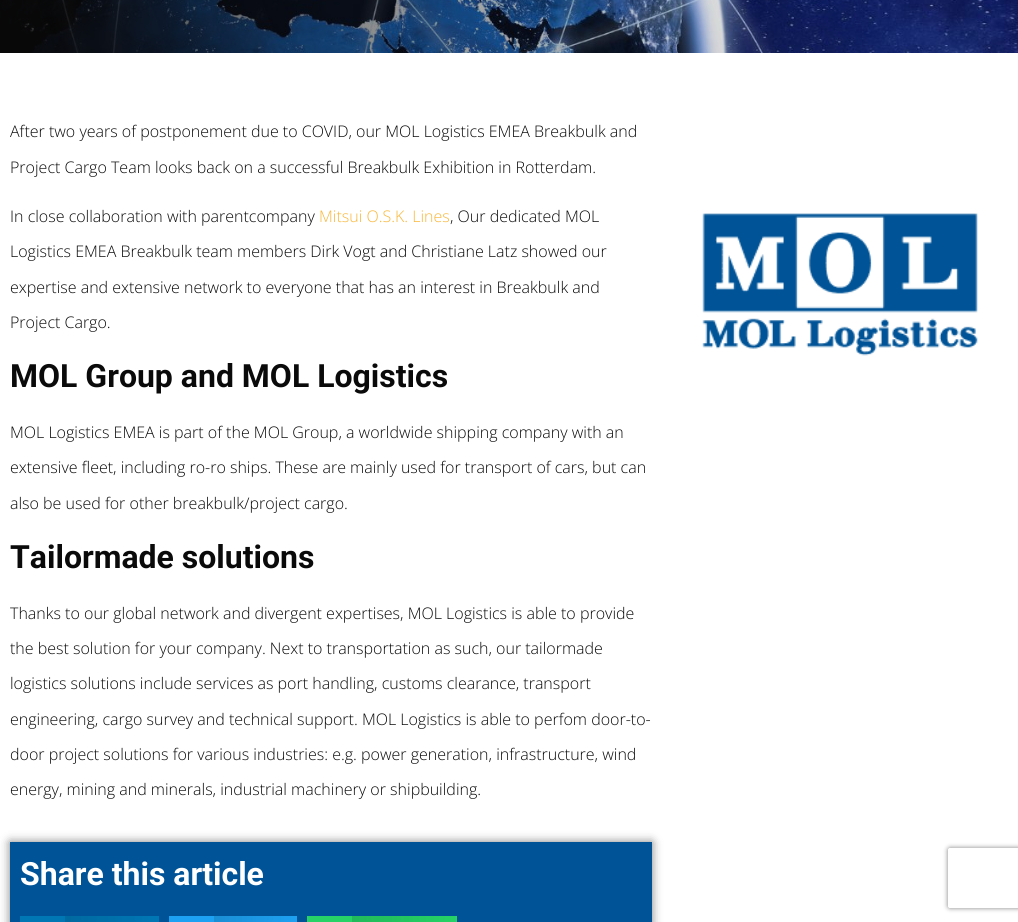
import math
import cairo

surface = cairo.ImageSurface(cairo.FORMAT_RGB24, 1018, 922)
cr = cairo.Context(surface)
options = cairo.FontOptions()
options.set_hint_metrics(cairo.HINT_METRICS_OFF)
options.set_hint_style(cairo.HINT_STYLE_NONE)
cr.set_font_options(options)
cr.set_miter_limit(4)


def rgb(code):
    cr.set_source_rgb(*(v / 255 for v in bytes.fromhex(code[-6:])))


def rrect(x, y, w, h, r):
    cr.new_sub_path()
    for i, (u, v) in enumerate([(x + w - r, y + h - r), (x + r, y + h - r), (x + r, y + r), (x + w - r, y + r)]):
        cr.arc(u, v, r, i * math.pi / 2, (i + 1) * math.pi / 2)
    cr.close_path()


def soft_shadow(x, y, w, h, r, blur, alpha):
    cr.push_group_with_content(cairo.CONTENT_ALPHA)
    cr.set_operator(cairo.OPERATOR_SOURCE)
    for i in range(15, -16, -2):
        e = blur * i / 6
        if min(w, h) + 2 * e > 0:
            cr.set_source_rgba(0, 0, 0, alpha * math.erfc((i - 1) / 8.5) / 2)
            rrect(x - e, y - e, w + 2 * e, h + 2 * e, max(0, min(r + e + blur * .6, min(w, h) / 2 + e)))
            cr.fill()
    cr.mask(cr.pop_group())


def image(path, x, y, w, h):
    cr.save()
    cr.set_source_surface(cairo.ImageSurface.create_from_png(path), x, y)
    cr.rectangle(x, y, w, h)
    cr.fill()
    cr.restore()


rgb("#ffffff")
cr.paint()
image("img/1.png", 0, 0, 1018, 53)
rgb("#000000")
soft_shadow(10, 842, 642, 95, 0, 5, 0.5)
rgb("#005396")
cr.rectangle(10, 842, 642, 80)
cr.fill()
rgb("#0077b5")
cr.rectangle(20, 916, 45, 6)
cr.fill()
gradient = cairo.LinearGradient(65, 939, 159, 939)
gradient.add_color_stop_rgba(0, 0, 0.412, 0.624, 1)
gradient.add_color_stop_rgba(1, 0, 0.467, 0.71, 1)
cr.set_source(gradient)
cr.rectangle(65, 916, 94, 6)
cr.fill()
rgb("#1da1f2")
cr.rectangle(169, 916, 45, 6)
cr.fill()
gradient = cairo.LinearGradient(214, 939, 297, 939)
gradient.add_color_stop_rgba(0, 0.102, 0.557, 0.835, 1)
gradient.add_color_stop_rgba(1, 0.114, 0.631, 0.949, 1)
cr.set_source(gradient)
cr.rectangle(214, 916, 83, 6)
cr.fill()
rgb("#25d366")
cr.rectangle(307, 916, 45, 6)
cr.fill()
gradient = cairo.LinearGradient(352, 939, 457, 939)
gradient.add_color_stop_rgba(0, 0.129, 0.729, 0.353, 1)
gradient.add_color_stop_rgba(1, 0.145, 0.827, 0.4, 1)
cr.set_source(gradient)
cr.rectangle(352, 916, 105, 6)
cr.fill()
image("img/2.png", 702, 213, 276, 143)
cr.save()
cr.set_fill_rule(cairo.FILL_RULE_EVEN_ODD)
cr.new_path()
cr.move_to(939, 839)
cr.line_to(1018, 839)
cr.line_to(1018, 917)
cr.line_to(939, 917)
cr.close_path()
cr.move_to(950, 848)
cr.line_to(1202, 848)
cr.curve_to(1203, 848, 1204, 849, 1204, 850)
cr.line_to(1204, 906)
cr.curve_to(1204, 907, 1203, 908, 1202, 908)
cr.line_to(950, 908)
cr.curve_to(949, 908, 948, 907, 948, 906)
cr.line_to(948, 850)
cr.curve_to(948, 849, 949, 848, 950, 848)
cr.close_path()
cr.clip()
rgb("#808080")
soft_shadow(948, 848, 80, 60, 2, 2.5, 1)
cr.restore()
cr.select_font_face("Open Sans Light")
cr.set_font_size(16)
rgb("#0a0a0a")
for x, y, s in [
    (10, 137, "After two years of postponement due to COVID, our MOL Logistics EMEA Breakbulk and"),
    (10, 173, "Project Cargo Team looks back on a successful Breakbulk Exhibition in Rotterdam."),
    (10, 222, "In close collaboration with parentcompany"),
]:
    cr.move_to(x, y)
    cr.show_text(s)
rgb("#f9b638")
cr.move_to(319, 222)
cr.show_text("Mitsui O.S.K. Lines")
rgb("#0a0a0a")
for x, y, s in [
    (450, 222, ", Our dedicated MOL"),
    (10, 257, "Logistics EMEA Breakbulk team members Dirk Vogt and Christiane Latz showed our"),
    (10, 293, "expertise and extensive network to everyone that has an interest in Breakbulk and"),
    (10, 328, "Project Cargo."),
]:
    cr.move_to(x, y)
    cr.show_text(s)
cr.select_font_face("Roboto", cairo.FONT_SLANT_NORMAL, cairo.FONT_WEIGHT_BOLD)
cr.set_font_size(32)
cr.move_to(10, 387)
cr.show_text("MOL Group and MOL Logistics")
cr.select_font_face("Open Sans Light")
cr.set_font_size(16)
for x, y, s in [
    (10, 438, "MOL Logistics EMEA is part of the MOL Group, a worldwide shipping company with an"),
    (10, 473, "extensive fleet, including ro-ro ships. These are mainly used for transport of cars, but can"),
    (10, 509, "also be used for other breakbulk/project cargo."),
]:
    cr.move_to(x, y)
    cr.show_text(s)
cr.select_font_face("Roboto", cairo.FONT_SLANT_NORMAL, cairo.FONT_WEIGHT_BOLD)
cr.set_font_size(32)
cr.move_to(10, 568)
cr.show_text("Tailormade solutions")
cr.select_font_face("Open Sans Light")
cr.set_font_size(16)
for x, y, s in [
    (10, 619, "Thanks to our global network and divergent expertises, MOL Logistics is able to provide"),
    (10, 654, "the best solution for your company. Next to transportation as such, our tailormade"),
    (10, 689, "logistics solutions include services as port handling, customs clearance, transport"),
    (10, 725, "engineering, cargo survey and technical support. MOL Logistics is able to perfom door-to-"),
    (10, 760, "door project solutions for various industries: e.g. power generation, infrastructure, wind"),
    (10, 795, "energy, mining and minerals, industrial machinery or shipbuilding."),
]:
    cr.move_to(x, y)
    cr.show_text(s)
cr.select_font_face("Roboto", cairo.FONT_SLANT_NORMAL, cairo.FONT_WEIGHT_BOLD)
cr.set_font_size(32)
rgb("#ffffff")
cr.move_to(20, 885)
cr.show_text("Share this article")
surface.write_to_png("page.png")
